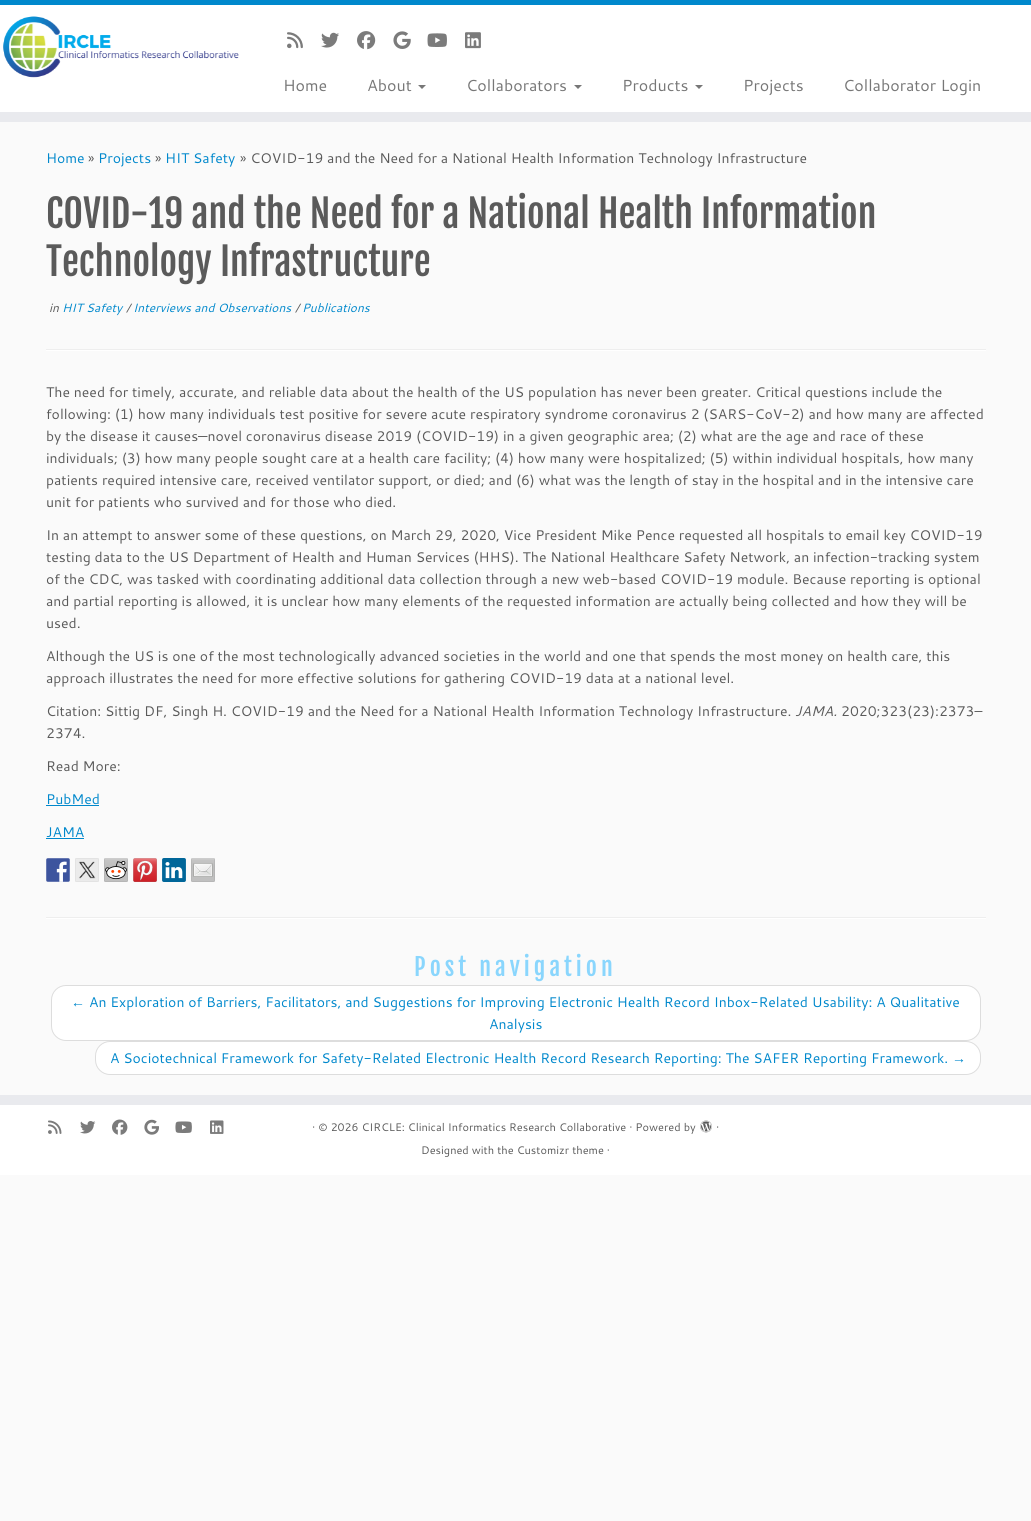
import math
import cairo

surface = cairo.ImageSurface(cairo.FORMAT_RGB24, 1031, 1521)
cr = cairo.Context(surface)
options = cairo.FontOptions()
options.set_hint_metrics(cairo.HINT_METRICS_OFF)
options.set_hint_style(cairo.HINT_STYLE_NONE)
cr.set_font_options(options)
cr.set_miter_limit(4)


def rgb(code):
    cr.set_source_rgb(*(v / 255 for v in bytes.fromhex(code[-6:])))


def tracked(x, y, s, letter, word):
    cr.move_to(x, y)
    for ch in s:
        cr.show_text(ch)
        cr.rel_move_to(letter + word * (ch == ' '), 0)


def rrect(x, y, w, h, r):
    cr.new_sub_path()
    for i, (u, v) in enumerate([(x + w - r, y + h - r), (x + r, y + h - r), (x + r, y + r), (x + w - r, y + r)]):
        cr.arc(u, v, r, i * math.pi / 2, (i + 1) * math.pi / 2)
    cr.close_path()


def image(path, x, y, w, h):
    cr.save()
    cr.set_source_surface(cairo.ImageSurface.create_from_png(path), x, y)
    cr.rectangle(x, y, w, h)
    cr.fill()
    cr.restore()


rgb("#fafafa")
cr.paint()
for x, y, w, h, color in [
    (0, 5, 1031, 107, "#ffffff"),
    (0, 0, 1031, 5, "#0088cc"),
    (0, 112, 1031, 10, "#e9eaee"),
]:
    rgb(color)
    cr.rectangle(x, y, w, h)
    cr.fill()
image("img/1.png", 3, 16, 236, 62)
image("img/2.png", 287, 32, 16, 17)
image("img/3.png", 321, 32, 18, 16)
image("img/4.png", 357, 31, 19, 19)
image("img/5.png", 393, 31, 18, 18)
image("img/6.png", 427, 33, 20, 14)
image("img/7.png", 465, 32, 16, 17)
rgb("#777777")
cr.new_path()
cr.move_to(418, 85)
cr.line_to(426, 85)
cr.line_to(422, 89)
cr.close_path()
cr.fill()
cr.new_path()
cr.move_to(574, 85)
cr.line_to(582, 85)
cr.line_to(578, 89)
cr.close_path()
cr.fill()
cr.new_path()
cr.move_to(695, 85)
cr.line_to(703, 85)
cr.line_to(699, 89)
cr.close_path()
cr.fill()
for x, y, w, h, color in [
    (46, 349, 940, 1, "#eeeeee"),
    (46, 350, 940, 1, "#ffffff"),
    (46, 805, 53, 1, "#0088cc"),
    (46, 838, 38, 1, "#0088cc"),
]:
    rgb(color)
    cr.rectangle(x, y, w, h)
    cr.fill()
image("img/8.png", 46, 858, 24, 24)
image("img/9.png", 75, 858, 24, 24)
image("img/10.png", 104, 858, 24, 24)
image("img/11.png", 133, 858, 24, 24)
image("img/12.png", 162, 858, 24, 24)
image("img/13.png", 191, 858, 24, 24)
rgb("#eeeeee")
cr.rectangle(46, 917, 940, 1)
cr.fill()
rgb("#ffffff")
cr.rectangle(46, 918, 940, 1)
cr.fill()
rrect(51.5, 985.5, 929, 55, 14.5)
cr.fill_preserve()
rgb("#dddddd")
cr.set_line_width(1)
cr.stroke()
rgb("#ffffff")
rrect(95.5, 1041.5, 885, 33, 14.5)
cr.fill_preserve()
rgb("#dddddd")
cr.stroke()
rgb("#e9eaee")
cr.rectangle(0, 1095, 1031, 10)
cr.fill()
rgb("#ffffff")
cr.rectangle(0, 1105, 1031, 70)
cr.fill()
image("img/14.png", 48, 1120, 14, 14)
image("img/15.png", 80, 1121, 16, 13)
image("img/16.png", 112, 1119, 16, 16)
image("img/17.png", 144, 1119, 15, 16)
image("img/18.png", 175, 1121, 17, 12)
image("img/19.png", 210, 1120, 14, 14)
image("img/20.png", 700, 1120, 12, 13)
cr.select_font_face("Cantarell")
cr.set_font_size(16)
rgb("#777777")
for x, y, s in [
    (283, 91, "Home"),
    (367, 91, "About"),
    (466, 91, "Collaborators"),
    (622, 91, "Products"),
    (743, 91, "Projects"),
    (843, 91, "Collaborator Login"),
]:
    cr.move_to(x, y)
    cr.show_text(s)
cr.set_font_size(14)
rgb("#0088cc")
cr.move_to(46, 163)
cr.show_text("Home")
rgb("#5a5a5a")
cr.move_to(88, 163)
cr.show_text("»")
rgb("#0088cc")
cr.move_to(98, 163)
cr.show_text("Projects")
rgb("#5a5a5a")
cr.move_to(155, 163)
cr.show_text("»")
rgb("#0088cc")
cr.move_to(165, 163)
cr.show_text("HIT Safety")
rgb("#5a5a5a")
cr.move_to(240, 163)
cr.show_text("» COVID-19 and the Need for a National Health Information Technology Infrastructure")
cr.select_font_face("Fjalla One")
cr.set_font_size(38)
cr.move_to(46, 228)
cr.show_text("COVID-19 and the Need for a National Health Information")
cr.move_to(46, 276)
cr.show_text("Technology Infrastructure")
cr.select_font_face("Cantarell", cairo.FONT_SLANT_ITALIC)
cr.set_font_size(12)
cr.move_to(49, 312)
cr.show_text("in")
rgb("#0088cc")
cr.move_to(62, 312)
cr.show_text("HIT Safety")
rgb("#5a5a5a")
cr.move_to(126, 312)
cr.show_text("/")
rgb("#0088cc")
cr.move_to(133, 312)
cr.show_text("Interviews and Observations")
rgb("#5a5a5a")
cr.move_to(295, 312)
cr.show_text("/")
rgb("#0088cc")
cr.move_to(302, 312)
cr.show_text("Publications")
cr.select_font_face("Cantarell")
cr.set_font_size(14)
rgb("#5a5a5a")
for x, y, s in [
    (46, 397, "The need for timely, accurate, and reliable data about the health of the US population has never been greater. Critical questions include the"),
    (46, 419, "following: (1) how many individuals test positive for severe acute respiratory syndrome coronavirus 2 (SARS-CoV-2) and how many are affected"),
    (46, 441, "by the disease it causes—novel coronavirus disease 2019 (COVID-19) in a given geographic area; (2) what are the age and race of these"),
    (46, 463, "individuals; (3) how many people sought care at a health care facility; (4) how many were hospitalized; (5) within individual hospitals, how many"),
    (46, 485, "patients required intensive care, received ventilator support, or died; and (6) what was the length of stay in the hospital and in the intensive care"),
    (46, 507, "unit for patients who survived and for those who died."),
    (46, 540, "In an attempt to answer some of these questions, on March 29, 2020, Vice President Mike Pence requested all hospitals to email key COVID-19"),
    (46, 562, "testing data to the US Department of Health and Human Services (HHS). The National Healthcare Safety Network, an infection-tracking system"),
    (46, 584, "of the CDC, was tasked with coordinating additional data collection through a new web-based COVID-19 module. Because reporting is optional"),
    (46, 606, "and partial reporting is allowed, it is unclear how many elements of the requested information are actually being collected and how they will be"),
    (46, 628, "used."),
    (46, 661, "Although the US is one of the most technologically advanced societies in the world and one that spends the most money on health care, this"),
    (46, 683, "approach illustrates the need for more effective solutions for gathering COVID-19 data at a national level."),
    (46, 716, "Citation: Sittig DF, Singh H. COVID-19 and the Need for a National Health Information Technology Infrastructure."),
]:
    cr.move_to(x, y)
    cr.show_text(s)
cr.select_font_face("Cantarell", cairo.FONT_SLANT_ITALIC)
cr.move_to(795, 716)
cr.show_text("JAMA.")
cr.select_font_face("Cantarell")
for x, y, s in [
    (841, 716, "2020;323(23):2373–"),
    (46, 738, "2374."),
    (46, 771, "Read More:"),
]:
    cr.move_to(x, y)
    cr.show_text(s)
rgb("#0088cc")
cr.move_to(46, 804)
cr.show_text("PubMed")
cr.move_to(46, 837)
cr.show_text("JAMA")
cr.select_font_face("Fjalla One")
cr.set_font_size(24)
rgb("#8ad6fd")
tracked(414, 976, "Post navigation", 4, 0)
cr.select_font_face("Liberation Serif")
cr.set_font_size(14)
rgb("#0088cc")
cr.move_to(71, 1007)
cr.show_text("←")
cr.select_font_face("Cantarell")
for x, y, s in [
    (89, 1007, "An Exploration of Barriers, Facilitators, and Suggestions for Improving Electronic Health Record Inbox-Related Usability: A Qualitative"),
    (489, 1029, "Analysis"),
    (110, 1063, "A Sociotechnical Framework for Safety-Related Electronic Health Record Research Reporting: The SAFER Reporting Framework."),
]:
    cr.move_to(x, y)
    cr.show_text(s)
cr.select_font_face("Liberation Serif")
cr.move_to(952, 1063)
cr.show_text("→")
cr.select_font_face("Cantarell")
cr.set_font_size(11)
rgb("#5a5a5a")
for x, y, s in [
    (312, 1131, "· © 2026 CIRCLE: Clinical Informatics Research Collaborative · Powered by"),
    (716, 1131, "·"),
    (421, 1154, "Designed with the Customizr theme ·"),
]:
    cr.move_to(x, y)
    cr.show_text(s)
surface.write_to_png("page.png")
